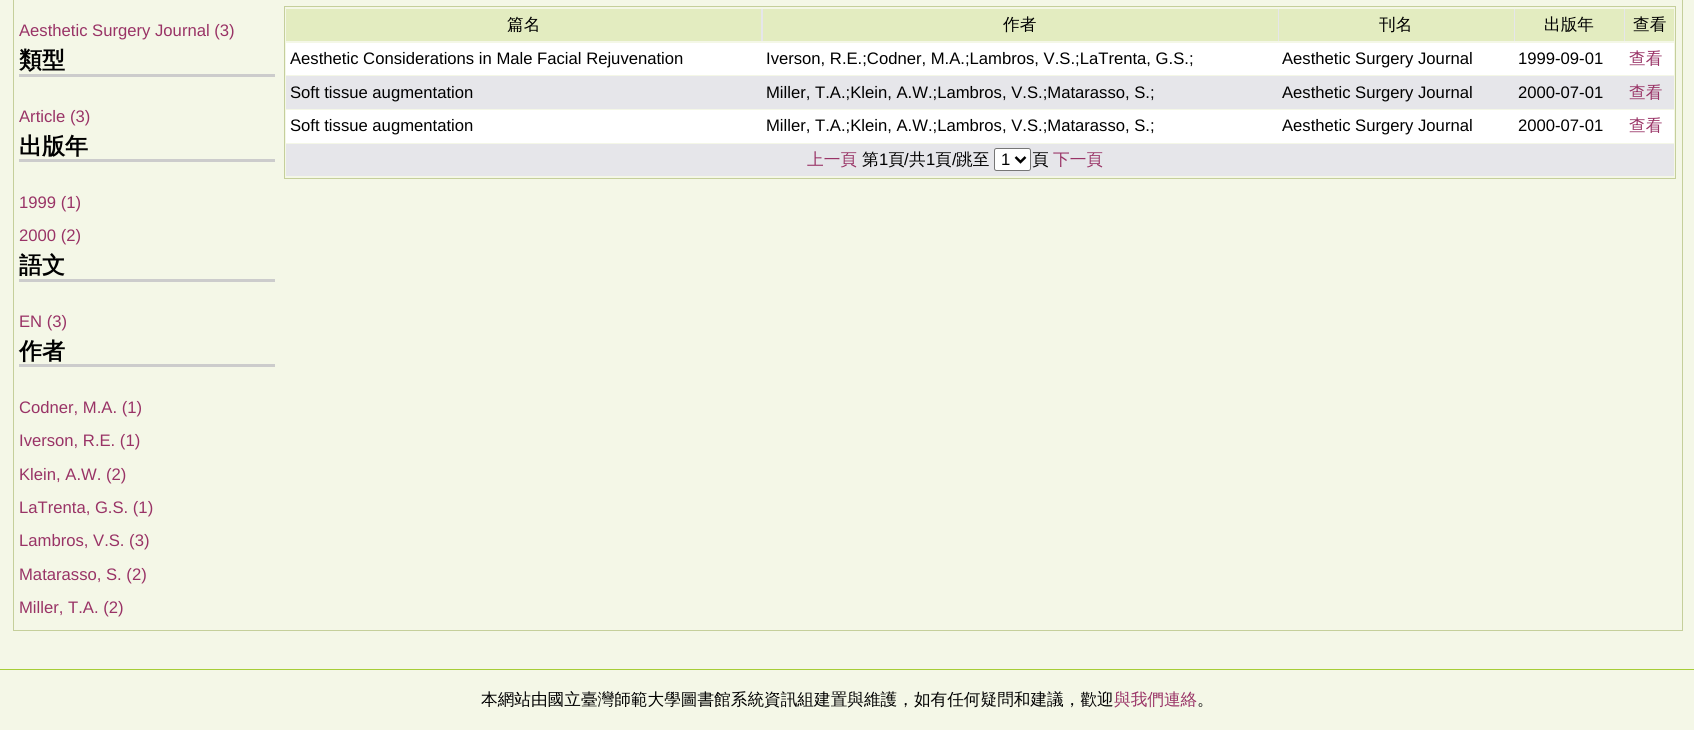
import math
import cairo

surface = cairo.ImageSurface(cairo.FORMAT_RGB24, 1694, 730)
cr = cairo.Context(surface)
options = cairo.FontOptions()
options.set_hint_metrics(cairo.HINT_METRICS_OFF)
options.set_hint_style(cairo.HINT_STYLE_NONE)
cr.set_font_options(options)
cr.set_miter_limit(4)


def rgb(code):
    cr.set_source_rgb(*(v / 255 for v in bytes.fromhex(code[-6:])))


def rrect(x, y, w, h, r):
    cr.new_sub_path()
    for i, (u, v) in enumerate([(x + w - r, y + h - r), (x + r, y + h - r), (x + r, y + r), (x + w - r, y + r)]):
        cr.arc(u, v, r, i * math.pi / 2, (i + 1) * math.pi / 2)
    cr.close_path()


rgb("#f4f7e7")
cr.paint()
cr.rectangle(13.5, -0.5, 1669, 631)
rgb("#c5cf9b")
cr.set_line_width(1)
cr.stroke()
for x, y, w, h, color in [
    (19, 74, 256, 3, "#cccccc"),
    (19, 159, 256, 3, "#cccccc"),
    (19, 279, 256, 3, "#cccccc"),
    (19, 364, 256, 3, "#cccccc"),
]:
    rgb(color)
    cr.rectangle(x, y, w, h)
    cr.fill()
cr.rectangle(284.5, 6.5, 1391, 172)
rgb("#c5cf9b")
cr.stroke()
for x, y, w, h, color in [
    (761, 9, 864, 32, "#e6e6ea"),
    (286, 9, 475, 32, "#e3ecc0"),
    (763, 9, 515, 32, "#e3ecc0"),
    (1279, 9, 235, 32, "#e3ecc0"),
    (1515, 9, 109, 32, "#e3ecc0"),
    (1625, 9, 49, 32, "#e3ecc0"),
    (286, 43, 1388, 32, "#ffffff"),
    (286, 76, 1388, 33, "#e6e6ea"),
    (286, 110, 1388, 33, "#ffffff"),
    (286, 144, 1388, 32, "#e6e6ea"),
]:
    rgb(color)
    cr.rectangle(x, y, w, h)
    cr.fill()
rgb("#ffffff")
rrect(994.5, 148.5, 36, 22, 2)
cr.fill_preserve()
rgb("#767676")
cr.stroke()
cr.new_path()
cr.move_to(1015.5, 157)
cr.line_to(1020.5, 162)
cr.line_to(1025.5, 157)
rgb("#000000")
cr.set_line_width(2.5)
cr.stroke()
rgb("#a6cd37")
cr.rectangle(0, 669, 1694, 1)
cr.fill()
cr.select_font_face("Liberation Sans")
cr.set_font_size(16.65)
rgb("#993366")
cr.move_to(19, 36)
cr.show_text("Aesthetic Surgery Journal (3)")
cr.select_font_face("WenQuanYi Zen Hei", cairo.FONT_SLANT_NORMAL, cairo.FONT_WEIGHT_BOLD)
cr.set_font_size(23)
rgb("#000000")
cr.move_to(19, 68)
cr.show_text("類型")
cr.select_font_face("Liberation Sans")
cr.set_font_size(16.65)
rgb("#993366")
cr.move_to(19, 122)
cr.show_text("Article (3)")
cr.select_font_face("WenQuanYi Zen Hei", cairo.FONT_SLANT_NORMAL, cairo.FONT_WEIGHT_BOLD)
cr.set_font_size(23)
rgb("#000000")
cr.move_to(19, 154)
cr.show_text("出版年")
cr.select_font_face("Liberation Sans")
cr.set_font_size(16.65)
rgb("#993366")
cr.move_to(19, 208)
cr.show_text("1999 (1)")
cr.move_to(19, 241)
cr.show_text("2000 (2)")
cr.select_font_face("WenQuanYi Zen Hei", cairo.FONT_SLANT_NORMAL, cairo.FONT_WEIGHT_BOLD)
cr.set_font_size(23)
rgb("#000000")
cr.move_to(19, 273)
cr.show_text("語文")
cr.select_font_face("Liberation Sans")
cr.set_font_size(16.65)
rgb("#993366")
cr.move_to(19, 327)
cr.show_text("EN (3)")
cr.select_font_face("WenQuanYi Zen Hei", cairo.FONT_SLANT_NORMAL, cairo.FONT_WEIGHT_BOLD)
cr.set_font_size(23)
rgb("#000000")
cr.move_to(19, 359)
cr.show_text("作者")
cr.select_font_face("Liberation Sans")
cr.set_font_size(16.65)
rgb("#993366")
for x, y, s in [
    (19, 413, "Codner, M.A. (1)"),
    (19, 446, "Iverson, R.E. (1)"),
    (19, 480, "Klein, A.W. (2)"),
    (19, 513, "LaTrenta, G.S. (1)"),
    (19, 546, "Lambros, V.S. (3)"),
    (19, 580, "Matarasso, S. (2)"),
    (19, 613, "Miller, T.A. (2)"),
]:
    cr.move_to(x, y)
    cr.show_text(s)
cr.select_font_face("WenQuanYi Zen Hei Medium")
rgb("#000000")
for x, y, s in [
    (507, 30, "篇名"),
    (1003, 30, "作者"),
    (1379, 30, "刊名"),
    (1544, 30, "出版年"),
    (1633, 30, "查看"),
]:
    cr.move_to(x, y)
    cr.show_text(s)
cr.select_font_face("Liberation Sans")
for x, y, s in [
    (290, 64, "Aesthetic Considerations in Male Facial Rejuvenation"),
    (766, 64, "Iverson, R.E.;Codner, M.A.;Lambros, V.S.;LaTrenta, G.S.;"),
    (1282, 64, "Aesthetic Surgery Journal"),
    (1518, 64, "1999-09-01"),
]:
    cr.move_to(x, y)
    cr.show_text(s)
cr.select_font_face("WenQuanYi Zen Hei Medium")
rgb("#993366")
cr.move_to(1629, 64)
cr.show_text("查看")
cr.select_font_face("Liberation Sans")
rgb("#000000")
for x, y, s in [
    (290, 98, "Soft tissue augmentation"),
    (766, 98, "Miller, T.A.;Klein, A.W.;Lambros, V.S.;Matarasso, S.;"),
    (1282, 98, "Aesthetic Surgery Journal"),
    (1518, 98, "2000-07-01"),
]:
    cr.move_to(x, y)
    cr.show_text(s)
cr.select_font_face("WenQuanYi Zen Hei Medium")
rgb("#993366")
cr.move_to(1629, 98)
cr.show_text("查看")
cr.select_font_face("Liberation Sans")
rgb("#000000")
for x, y, s in [
    (290, 131, "Soft tissue augmentation"),
    (766, 131, "Miller, T.A.;Klein, A.W.;Lambros, V.S.;Matarasso, S.;"),
    (1282, 131, "Aesthetic Surgery Journal"),
    (1518, 131, "2000-07-01"),
]:
    cr.move_to(x, y)
    cr.show_text(s)
cr.select_font_face("WenQuanYi Zen Hei Medium")
rgb("#993366")
cr.move_to(1629, 131)
cr.show_text("查看")
cr.move_to(807, 165)
cr.show_text("上一頁")
rgb("#000000")
cr.move_to(862, 165)
cr.show_text("第")
cr.select_font_face("Liberation Sans")
cr.move_to(879, 165)
cr.show_text("1")
cr.select_font_face("WenQuanYi Zen Hei Medium")
cr.move_to(888, 165)
cr.show_text("頁")
cr.select_font_face("Liberation Sans")
cr.move_to(904, 165)
cr.show_text("/")
cr.select_font_face("WenQuanYi Zen Hei Medium")
cr.move_to(909, 165)
cr.show_text("共")
cr.select_font_face("Liberation Sans")
cr.move_to(926, 165)
cr.show_text("1")
cr.select_font_face("WenQuanYi Zen Hei Medium")
cr.move_to(935, 165)
cr.show_text("頁")
cr.select_font_face("Liberation Sans")
cr.move_to(952, 165)
cr.show_text("/")
cr.select_font_face("WenQuanYi Zen Hei Medium")
cr.move_to(956, 165)
cr.show_text("跳至")
cr.select_font_face("Liberation Sans")
cr.move_to(1001, 165)
cr.show_text("1")
cr.select_font_face("WenQuanYi Zen Hei Medium")
cr.move_to(1032, 165)
cr.show_text("頁")
rgb("#993366")
cr.move_to(1053, 165)
cr.show_text("下一頁")
rgb("#000000")
cr.move_to(481, 705)
cr.show_text("本網站由國立臺灣師範大學圖書館系統資訊組建置與維護，如有任何疑問和建議，歡迎")
rgb("#993366")
cr.move_to(1114, 705)
cr.show_text("與我們連絡")
rgb("#000000")
cr.move_to(1197, 705)
cr.show_text("。")
surface.write_to_png("page.png")
